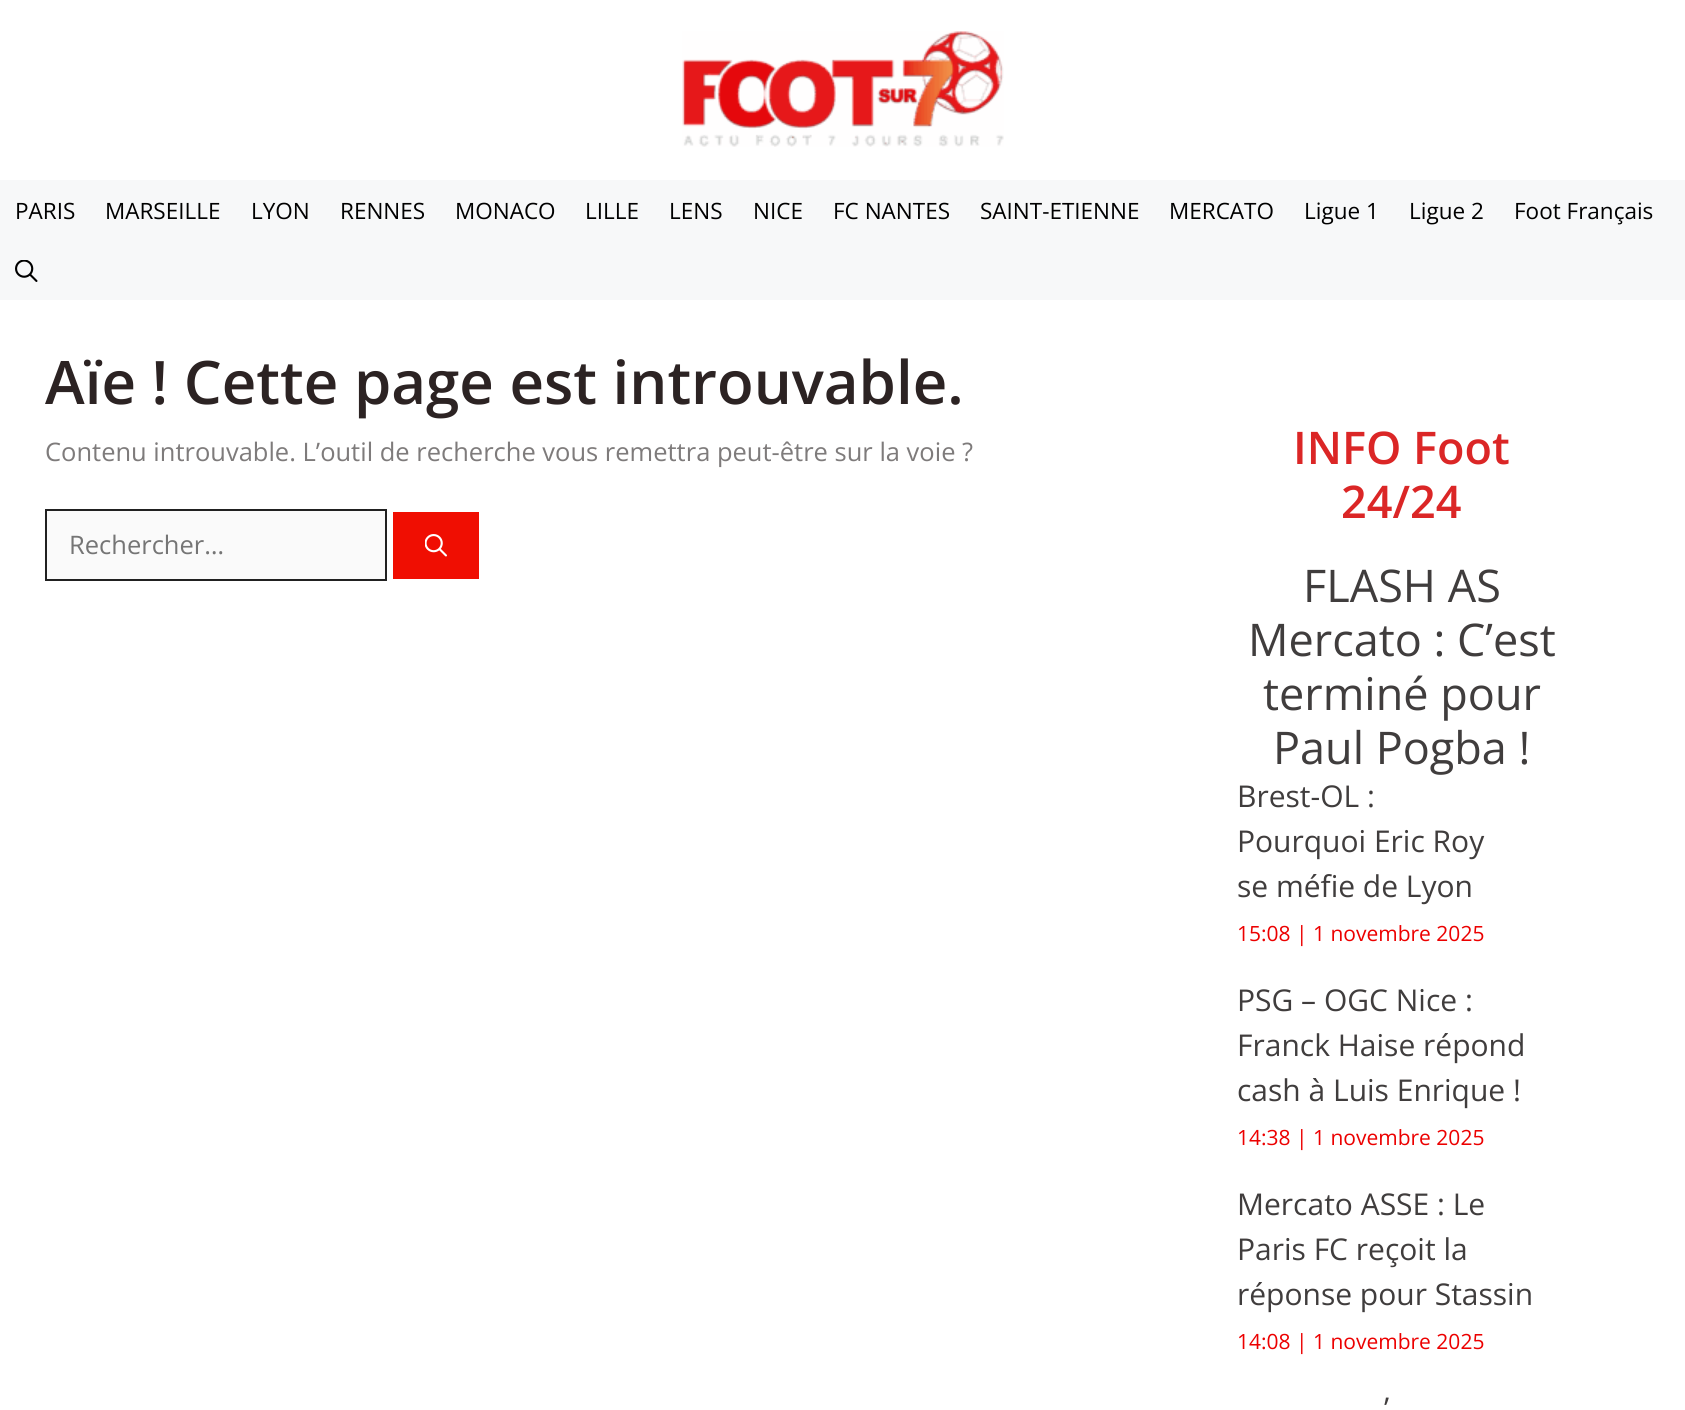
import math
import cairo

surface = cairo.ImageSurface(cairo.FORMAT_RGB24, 1685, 1410)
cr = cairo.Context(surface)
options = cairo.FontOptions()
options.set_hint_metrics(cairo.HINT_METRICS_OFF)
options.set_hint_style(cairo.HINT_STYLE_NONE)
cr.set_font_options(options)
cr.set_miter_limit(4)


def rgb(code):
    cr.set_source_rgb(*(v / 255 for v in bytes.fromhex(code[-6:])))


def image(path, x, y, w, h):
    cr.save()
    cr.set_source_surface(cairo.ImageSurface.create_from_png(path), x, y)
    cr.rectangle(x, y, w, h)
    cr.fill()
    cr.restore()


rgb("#f7f8f9")
cr.paint()
rgb("#ffffff")
cr.rectangle(0, 0, 1685, 180)
cr.fill()
image("img/1.png", 682, 31, 322, 116)
image("img/2.png", 15, 260, 23, 22)
cr.rectangle(0, 300, 1685, 1110)
cr.fill()
rgb("#fafafa")
cr.rectangle(46, 510, 340, 70)
cr.fill_preserve()
rgb("#212121")
cr.stroke()
rgb("#f00e02")
cr.rectangle(393, 512, 86, 67)
cr.fill()
image("img/3.png", 425, 534, 22, 23)
cr.select_font_face("Open Sans")
cr.set_font_size(22.5)
rgb("#000000")
for x, y, s in [
    (15, 219, "PARIS"),
    (105, 219, "MARSEILLE"),
    (251, 219, "LYON"),
    (340, 219, "RENNES"),
    (455, 219, "MONACO"),
    (585, 219, "LILLE"),
    (669, 219, "LENS"),
    (753, 219, "NICE"),
    (833, 219, "FC NANTES"),
    (980, 219, "SAINT-ETIENNE"),
    (1169, 219, "MERCATO"),
    (1304, 219, "Ligue 1"),
    (1409, 219, "Ligue 2"),
    (1514, 219, "Foot Français"),
]:
    cr.move_to(x, y)
    cr.show_text(s)
cr.select_font_face("Open Sans SemiBold")
cr.set_font_size(60)
rgb("#2c2323")
cr.move_to(45, 404)
cr.show_text("Aïe ! Cette page est introuvable.")
cr.select_font_face("Open Sans")
cr.set_font_size(25.5)
rgb("#7e7b7b")
cr.move_to(45, 461)
cr.show_text("Contenu introuvable. L’outil de recherche vous remettra peut-être sur la voie ?")
rgb("#757575")
cr.move_to(69, 554)
cr.show_text("Rechercher…")
cr.select_font_face("Open Sans SemiBold")
cr.set_font_size(45)
rgb("#db2626")
cr.move_to(1293, 464)
cr.show_text("INFO Foot")
cr.move_to(1341, 518)
cr.show_text("24/24")
cr.select_font_face("Open Sans")
rgb("#403d3d")
for x, y, s in [
    (1303, 602, "FLASH AS"),
    (1248, 656, "Mercato : C’est"),
    (1263, 710, "terminé pour"),
    (1273, 764, "Paul Pogba !"),
]:
    cr.move_to(x, y)
    cr.show_text(s)
cr.set_font_size(30)
for x, y, s in [
    (1237, 807, "Brest-OL :"),
    (1237, 852, "Pourquoi Eric Roy"),
    (1237, 897, "se méfie de Lyon"),
]:
    cr.move_to(x, y)
    cr.show_text(s)
cr.set_font_size(21)
rgb("#ec0000")
cr.move_to(1237, 941)
cr.show_text("15:08 | 1 novembre 2025")
cr.set_font_size(30)
rgb("#403d3d")
for x, y, s in [
    (1237, 1011, "PSG – OGC Nice :"),
    (1237, 1056, "Franck Haise répond"),
    (1237, 1101, "cash à Luis Enrique !"),
]:
    cr.move_to(x, y)
    cr.show_text(s)
cr.set_font_size(21)
rgb("#ec0000")
cr.move_to(1237, 1145)
cr.show_text("14:38 | 1 novembre 2025")
cr.set_font_size(30)
rgb("#403d3d")
for x, y, s in [
    (1237, 1215, "Mercato ASSE : Le"),
    (1237, 1260, "Paris FC reçoit la"),
    (1237, 1305, "réponse pour Stassin"),
]:
    cr.move_to(x, y)
    cr.show_text(s)
cr.set_font_size(21)
rgb("#ec0000")
cr.move_to(1237, 1349)
cr.show_text("14:08 | 1 novembre 2025")
cr.set_font_size(30)
rgb("#403d3d")
cr.move_to(1384, 1419)
cr.show_text("’")
surface.write_to_png("page.png")
